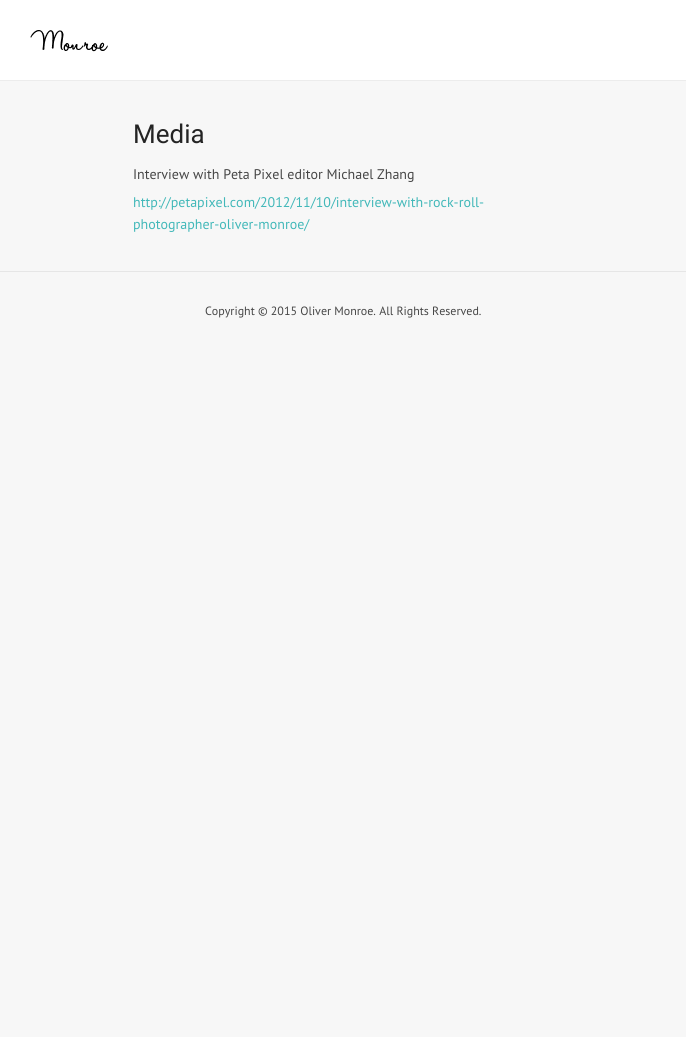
import math
import cairo

surface = cairo.ImageSurface(cairo.FORMAT_RGB24, 686, 1037)
cr = cairo.Context(surface)
options = cairo.FontOptions()
options.set_hint_metrics(cairo.HINT_METRICS_OFF)
options.set_hint_style(cairo.HINT_STYLE_NONE)
cr.set_font_options(options)
cr.set_miter_limit(4)


def rgb(code):
    cr.set_source_rgb(*(v / 255 for v in bytes.fromhex(code[-6:])))


def image(path, x, y, w, h):
    cr.save()
    cr.set_source_surface(cairo.ImageSurface.create_from_png(path), x, y)
    cr.rectangle(x, y, w, h)
    cr.fill()
    cr.restore()


rgb("#f7f7f7")
cr.paint()
rgb("#ffffff")
cr.rectangle(0, 0, 686, 80)
cr.fill()
rgb("#ececec")
cr.rectangle(0, 80, 686, 1)
cr.fill()
image("img/1.png", 30, 30, 78, 22)
rgb("#e6e6e6")
cr.rectangle(0, 271, 686, 1)
cr.fill()
cr.select_font_face("Roboto")
cr.set_font_size(26)
rgb("#242424")
cr.move_to(133, 143)
cr.show_text("Media")
cr.select_font_face("PT Sans")
cr.set_font_size(14)
rgb("#464646")
cr.move_to(133, 179)
cr.show_text("Interview with Peta Pixel editor Michael Zhang")
rgb("#42b8b9")
cr.move_to(133, 207)
cr.show_text("http://petapixel.com/2012/11/10/interview-with-rock-roll-")
cr.move_to(133, 229)
cr.show_text("photographer-oliver-monroe/")
cr.set_font_size(12)
rgb("#464646")
cr.move_to(205, 315)
cr.show_text("Copyright © 2015 Oliver Monroe. All Rights Reserved.")
surface.write_to_png("page.png")
